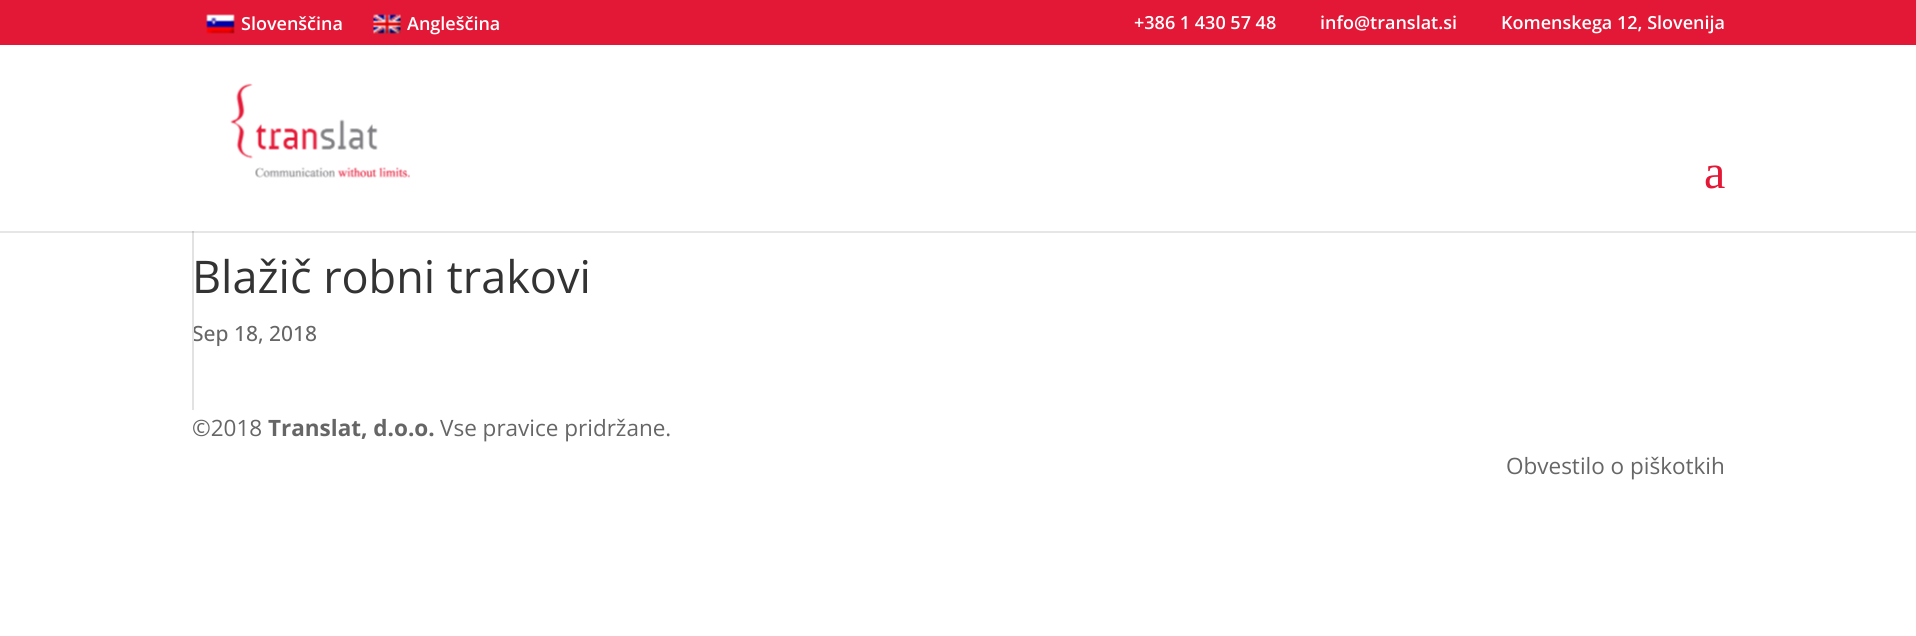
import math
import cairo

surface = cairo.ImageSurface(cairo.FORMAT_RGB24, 1916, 636)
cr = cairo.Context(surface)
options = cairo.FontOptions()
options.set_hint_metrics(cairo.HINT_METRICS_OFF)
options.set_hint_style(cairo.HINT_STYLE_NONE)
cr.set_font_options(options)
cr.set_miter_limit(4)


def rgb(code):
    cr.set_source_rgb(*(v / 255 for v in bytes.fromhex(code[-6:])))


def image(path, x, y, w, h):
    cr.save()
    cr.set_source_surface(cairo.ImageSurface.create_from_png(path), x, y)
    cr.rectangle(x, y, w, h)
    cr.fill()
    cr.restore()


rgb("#ffffff")
cr.paint()
rgb("#e6e6e6")
cr.rectangle(0, 231, 1916, 2)
cr.fill()
rgb("#e31837")
cr.rectangle(0, 0, 1916, 45)
cr.fill()
image("img/1.png", 206, 14, 29, 20)
image("img/2.png", 373, 14, 28, 20)
image("img/3.png", 230, 83, 180, 95)
rgb("#cbcbcb")
cr.rectangle(192, 231, 2, 2)
cr.fill()
cr.select_font_face("Open Sans SemiBold")
cr.set_font_size(18)
rgb("#ffffff")
for x, y, s in [
    (241, 30, "Slovenščina"),
    (407, 30, "Angleščina"),
    (1134, 29, "+386 1 430 57 48"),
    (1320, 29, "info@translat.si"),
    (1501, 29, "Komenskega 12, Slovenija"),
]:
    cr.move_to(x, y)
    cr.show_text(s)
cr.select_font_face("Liberation Serif")
cr.set_font_size(48)
rgb("#e31837")
cr.move_to(1704, 188)
cr.show_text("a")
cr.select_font_face("Open Sans")
cr.set_font_size(45)
rgb("#333333")
cr.move_to(192, 293)
cr.show_text("Blažič robni trakovi")
cr.select_font_face("Open Sans Medium")
cr.set_font_size(21)
rgb("#666666")
cr.move_to(192, 341)
cr.show_text("Sep 18, 2018")
rgb("#e2e2e2")
cr.rectangle(192, 233, 2, 177)
cr.fill()
cr.select_font_face("Open Sans")
cr.set_font_size(22.5)
rgb("#666666")
cr.move_to(192, 436)
cr.show_text("©2018")
cr.select_font_face("Open Sans", cairo.FONT_SLANT_NORMAL, cairo.FONT_WEIGHT_BOLD)
cr.move_to(268, 436)
cr.show_text("Translat, d.o.o.")
cr.select_font_face("Open Sans")
cr.move_to(440, 436)
cr.show_text("Vse pravice pridržane.")
cr.move_to(1506, 474)
cr.show_text("Obvestilo o piškotkih")
surface.write_to_png("page.png")
